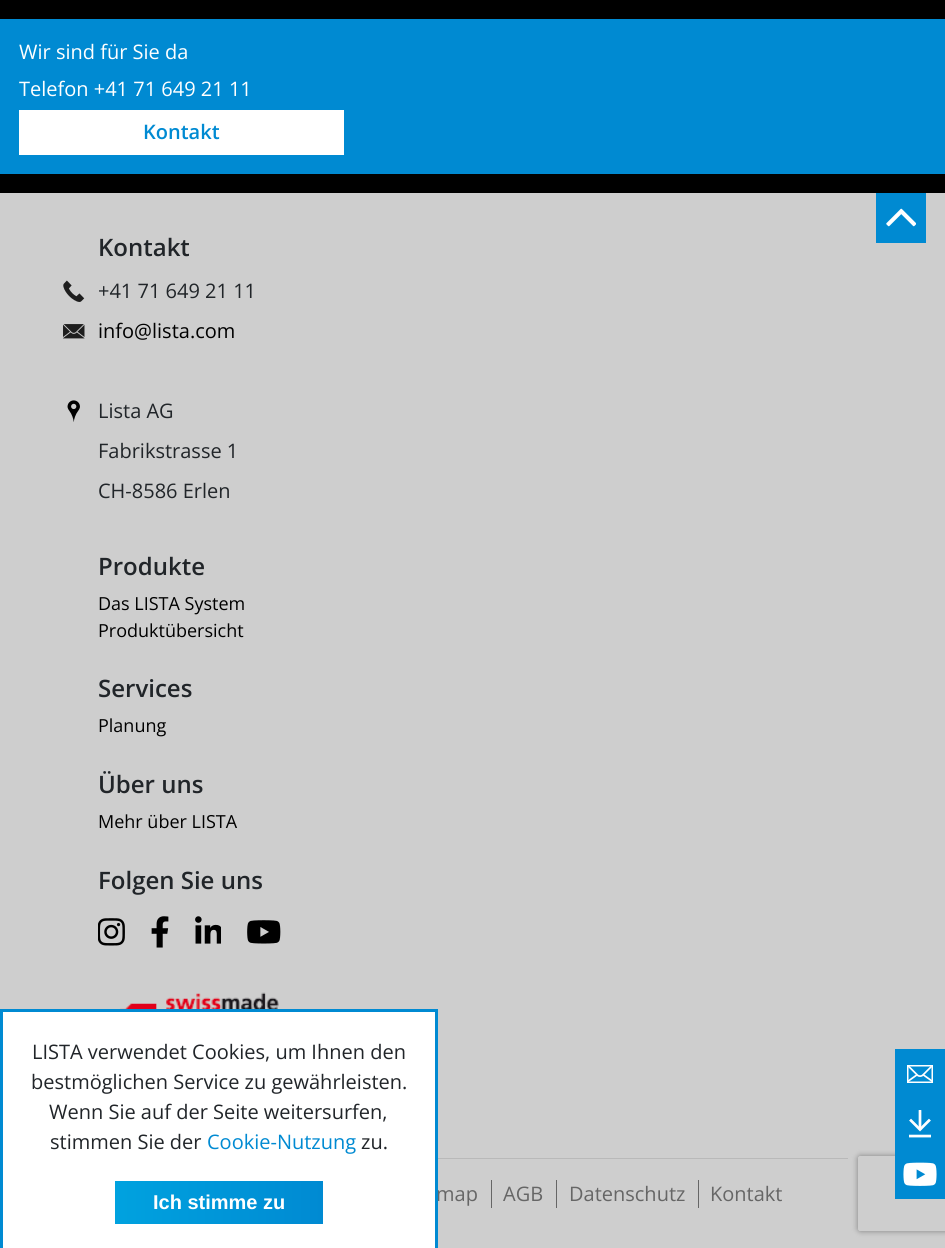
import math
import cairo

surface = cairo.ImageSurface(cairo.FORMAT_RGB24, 945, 1248)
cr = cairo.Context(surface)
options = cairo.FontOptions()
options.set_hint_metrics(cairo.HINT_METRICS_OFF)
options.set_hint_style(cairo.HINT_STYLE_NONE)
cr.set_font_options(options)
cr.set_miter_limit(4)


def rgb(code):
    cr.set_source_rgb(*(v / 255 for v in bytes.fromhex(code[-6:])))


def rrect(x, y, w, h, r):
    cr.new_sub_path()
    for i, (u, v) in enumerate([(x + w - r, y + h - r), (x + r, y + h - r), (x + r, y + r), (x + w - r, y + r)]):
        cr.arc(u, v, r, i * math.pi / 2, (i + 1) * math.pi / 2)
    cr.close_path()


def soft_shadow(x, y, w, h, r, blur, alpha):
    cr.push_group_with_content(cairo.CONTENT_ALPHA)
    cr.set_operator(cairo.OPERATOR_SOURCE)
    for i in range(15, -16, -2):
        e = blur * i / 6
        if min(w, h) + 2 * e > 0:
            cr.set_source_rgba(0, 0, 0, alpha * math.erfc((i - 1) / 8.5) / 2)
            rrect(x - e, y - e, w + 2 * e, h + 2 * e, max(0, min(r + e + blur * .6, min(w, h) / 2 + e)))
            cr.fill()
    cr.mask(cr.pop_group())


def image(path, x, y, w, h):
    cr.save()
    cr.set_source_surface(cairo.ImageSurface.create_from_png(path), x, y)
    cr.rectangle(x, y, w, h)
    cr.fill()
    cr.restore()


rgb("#000000")
cr.paint()
for x, y, w, h, color in [
    (0, 19, 945, 155, "#008ad2"),
    (19, 110, 325, 45, "#ffffff"),
    (0, 193, 945, 1055, "#cecece"),
    (876, 193, 50, 50, "#008ad2"),
]:
    rgb(color)
    cr.rectangle(x, y, w, h)
    cr.fill()
image("img/1.png", 886, 208, 30, 19)
image("img/2.png", 63, 280, 22, 22)
image("img/3.png", 63, 324, 22, 15)
image("img/4.png", 67, 400, 13, 22)
image("img/5.png", 98, 918, 27, 28)
image("img/6.png", 151, 916, 18, 32)
image("img/7.png", 195, 916, 26, 28)
image("img/8.png", 247, 920, 34, 24)
image("img/9.png", 95, 992, 184, 17)
for x, y, w, h, color in [
    (438, 1158, 410, 1, "#b9b9b9"),
    (491, 1180, 1, 28, "#666666"),
    (556, 1180, 1, 28, "#666666"),
    (698, 1180, 1, 28, "#666666"),
    (3, 1012, 432, 236, "#ffffff"),
    (0, 1009, 438, 3, "#008ad2"),
    (0, 1009, 3, 239, "#008ad2"),
]:
    rgb(color)
    cr.rectangle(x, y, w, h)
    cr.fill()
gradient = cairo.LinearGradient(115, 1203, 323, 1203)
gradient.add_color_stop_rgba(0, 0, 0.635, 0.875, 1)
gradient.add_color_stop_rgba(1, 0, 0.541, 0.824, 1)
cr.set_source(gradient)
cr.rectangle(115, 1181, 208, 43)
cr.fill()
cr.save()
cr.set_fill_rule(cairo.FILL_RULE_EVEN_ODD)
cr.new_path()
cr.move_to(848, 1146)
cr.line_to(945, 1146)
cr.line_to(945, 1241)
cr.line_to(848, 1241)
cr.close_path()
cr.move_to(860.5, 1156)
cr.line_to(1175.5, 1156)
cr.curve_to(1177, 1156, 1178, 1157, 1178, 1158.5)
cr.line_to(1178, 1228.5)
cr.curve_to(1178, 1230, 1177, 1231, 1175.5, 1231)
cr.line_to(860.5, 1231)
cr.curve_to(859, 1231, 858, 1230, 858, 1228.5)
cr.line_to(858, 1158.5)
cr.curve_to(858, 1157, 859, 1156, 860.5, 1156)
cr.close_path()
cr.clip()
rgb("#808080")
soft_shadow(858, 1156, 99, 75, 2.5, 3, 1)
cr.restore()
rgb("#008ad2")
cr.rectangle(895, 1049, 50, 150)
cr.fill()
image("img/10.png", 907, 1065, 26, 18)
image("img/11.png", 909, 1110, 22, 28)
image("img/12.png", 903, 1162, 34, 24)
cr.select_font_face("Open Sans")
cr.set_font_size(20)
rgb("#ffffff")
cr.move_to(19, 59)
cr.show_text("Wir sind für Sie da")
cr.move_to(19, 96)
cr.show_text("Telefon +41 71 649 21 11")
cr.select_font_face("Open Sans SemiBold")
rgb("#008ad2")
cr.move_to(143, 139)
cr.show_text("Kontakt")
cr.set_font_size(24)
rgb("#212529")
cr.move_to(98, 256)
cr.show_text("Kontakt")
cr.select_font_face("Open Sans")
cr.set_font_size(20)
cr.move_to(98, 298)
cr.show_text("+41 71 649 21 11")
rgb("#000000")
cr.move_to(98, 338)
cr.show_text("info@lista.com")
rgb("#212529")
for x, y, s in [
    (98, 418, "Lista AG"),
    (98, 458, "Fabrikstrasse 1"),
    (98, 498, "CH-8586 Erlen"),
]:
    cr.move_to(x, y)
    cr.show_text(s)
cr.select_font_face("Open Sans SemiBold")
cr.set_font_size(24)
cr.move_to(98, 575)
cr.show_text("Produkte")
cr.select_font_face("Open Sans")
cr.set_font_size(18)
rgb("#000000")
cr.move_to(98, 610)
cr.show_text("Das LISTA System")
cr.move_to(98, 637)
cr.show_text("Produktübersicht")
cr.select_font_face("Open Sans SemiBold")
cr.set_font_size(24)
rgb("#212529")
cr.move_to(98, 697)
cr.show_text("Services")
cr.select_font_face("Open Sans")
cr.set_font_size(18)
rgb("#000000")
cr.move_to(98, 732)
cr.show_text("Planung")
cr.select_font_face("Open Sans SemiBold")
cr.set_font_size(24)
rgb("#212529")
cr.move_to(98, 793)
cr.show_text("Über uns")
cr.select_font_face("Open Sans")
cr.set_font_size(18)
rgb("#000000")
cr.move_to(98, 828)
cr.show_text("Mehr über LISTA")
cr.select_font_face("Open Sans SemiBold")
cr.set_font_size(24)
rgb("#212529")
cr.move_to(98, 889)
cr.show_text("Folgen Sie uns")
cr.select_font_face("Open Sans")
cr.set_font_size(20)
rgb("#666666")
for x, y, s in [
    (436, 1201, "map"),
    (503, 1201, "AGB"),
    (569, 1201, "Datenschutz"),
    (710, 1201, "Kontakt"),
]:
    cr.move_to(x, y)
    cr.show_text(s)
rgb("#008ad2")
cr.rectangle(435, 1009, 3, 239)
cr.fill()
rgb("#212529")
for x, y, s in [
    (32, 1059, "LISTA verwendet Cookies, um Ihnen den"),
    (31, 1089, "bestmöglichen Service zu gewährleisten."),
    (49, 1119, "Wenn Sie auf der Seite weitersurfen,"),
    (50, 1149, "stimmen Sie der"),
]:
    cr.move_to(x, y)
    cr.show_text(s)
rgb("#008ad2")
cr.move_to(207, 1149)
cr.show_text("Cookie-Nutzung")
rgb("#212529")
cr.move_to(361, 1149)
cr.show_text("zu.")
cr.select_font_face("Liberation Sans", cairo.FONT_SLANT_NORMAL, cairo.FONT_WEIGHT_BOLD)
rgb("#ffffff")
cr.move_to(153, 1209)
cr.show_text("Ich stimme zu")
surface.write_to_png("page.png")
